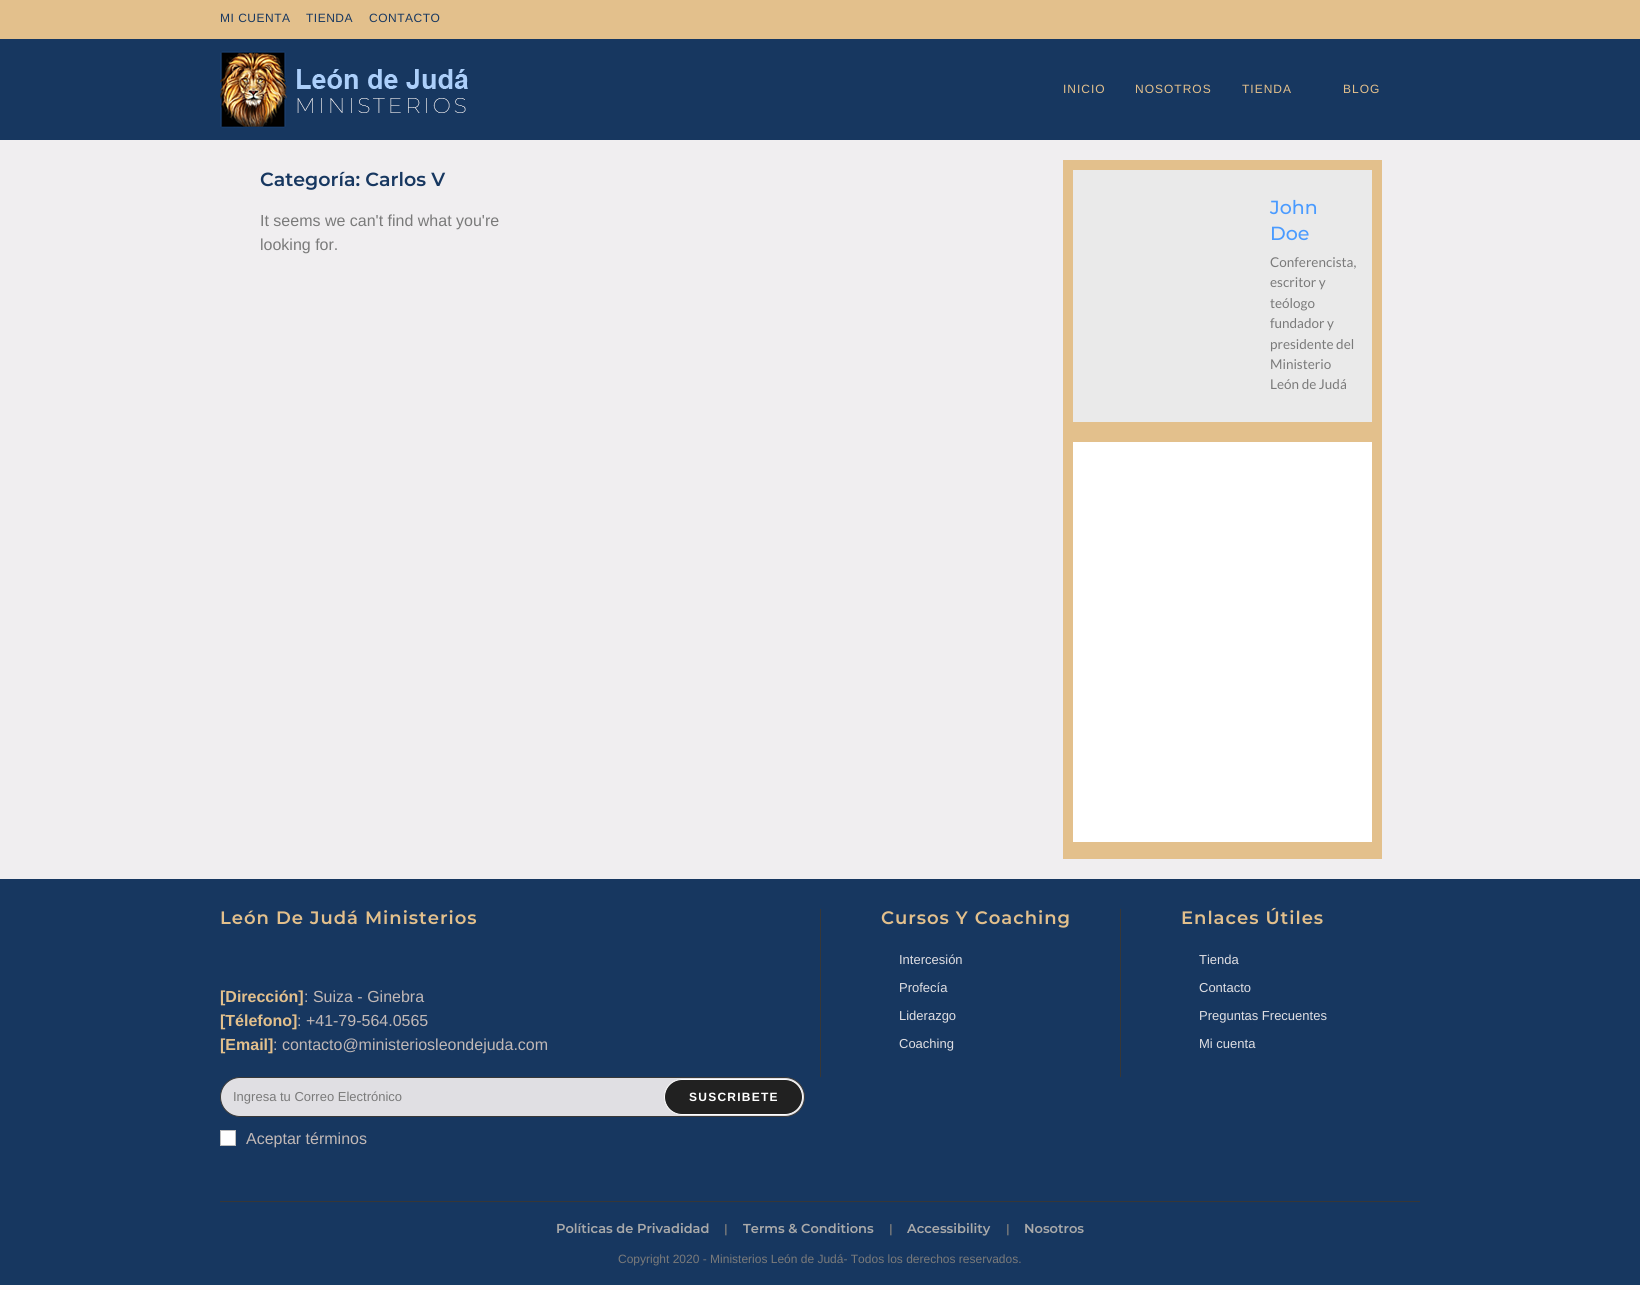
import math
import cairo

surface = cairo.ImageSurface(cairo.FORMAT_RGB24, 1640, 1290)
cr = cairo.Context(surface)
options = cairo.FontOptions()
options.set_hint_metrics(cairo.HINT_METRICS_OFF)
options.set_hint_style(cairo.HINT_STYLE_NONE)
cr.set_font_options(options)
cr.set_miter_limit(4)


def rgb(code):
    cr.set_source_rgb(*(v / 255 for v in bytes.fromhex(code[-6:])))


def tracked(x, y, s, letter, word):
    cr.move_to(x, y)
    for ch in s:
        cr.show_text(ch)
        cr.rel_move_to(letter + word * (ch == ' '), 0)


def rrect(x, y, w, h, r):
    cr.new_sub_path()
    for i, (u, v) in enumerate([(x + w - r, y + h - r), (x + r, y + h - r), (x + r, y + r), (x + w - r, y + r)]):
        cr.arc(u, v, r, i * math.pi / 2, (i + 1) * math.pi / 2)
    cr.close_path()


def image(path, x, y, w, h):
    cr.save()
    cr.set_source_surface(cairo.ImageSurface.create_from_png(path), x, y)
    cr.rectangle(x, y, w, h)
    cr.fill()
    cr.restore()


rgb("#fff9f9")
cr.paint()
rgb("#e3c08c")
cr.rectangle(0, 0, 1640, 39)
cr.fill()
rgb("#173760")
cr.rectangle(0, 39, 1640, 101)
cr.fill()
image("img/1.png", 220, 51, 248, 77)
for x, y, w, h, color in [
    (0, 140, 1640, 739, "#f0eef0"),
    (1063, 160, 319, 699, "#e3c08c"),
    (1073, 170, 299, 252, "#eaeaea"),
    (1073, 442, 299, 400, "#ffffff"),
    (0, 879, 1640, 406, "#173760"),
]:
    rgb(color)
    cr.rectangle(x, y, w, h)
    cr.fill()
rgb("#e0dfe3")
rrect(220.5, 1077.5, 584, 39, 19.5)
cr.fill_preserve()
rgb("#383838")
cr.set_line_width(1)
cr.stroke()
rgb("#212121")
rrect(664.5, 1079.5, 138, 35, 17.5)
cr.fill_preserve()
rgb("#ffffff")
cr.stroke()
cr.rectangle(220.5, 1130.5, 15, 15)
cr.fill_preserve()
rgb("#bbbbbb")
cr.stroke()
for x, y, w, h, color in [
    (820, 909, 1, 168, "#373737"),
    (1120, 909, 1, 168, "#373737"),
    (220, 1201, 1200, 1, "#373737"),
]:
    rgb(color)
    cr.rectangle(x, y, w, h)
    cr.fill()
cr.select_font_face("Liberation Sans")
cr.set_font_size(12)
rgb("#173760")
for x, y, s in [
    (220, 22, "MI CUENTA"),
    (306, 22, "TIENDA"),
    (369, 22, "CONTACTO"),
]:
    tracked(x, y, s, 0.5, 0)
rgb("#e3c08c")
for x, y, s in [
    (1063, 93, "INICIO"),
    (1135, 93, "NOSOTROS"),
    (1242, 93, "TIENDA"),
    (1343, 93, "BLOG"),
]:
    tracked(x, y, s, 1, 0)
cr.select_font_face("Montserrat SemiBold")
cr.set_font_size(19)
rgb("#173760")
cr.move_to(260, 186)
cr.show_text("Categoría: Carlos V")
cr.select_font_face("Liberation Sans")
cr.set_font_size(16)
rgb("#7a7a7a")
cr.move_to(260, 226)
cr.show_text("It seems we can't find what you're")
cr.move_to(260, 250)
cr.show_text("looking for.")
cr.select_font_face("Montserrat Medium")
cr.set_font_size(19)
rgb("#4a9bff")
cr.move_to(1270, 214)
cr.show_text("John")
cr.move_to(1270, 240)
cr.show_text("Doe")
cr.select_font_face("Lato")
cr.set_font_size(13.5)
rgb("#7a7a7a")
for x, y, s in [
    (1270, 267, "Conferencista,"),
    (1270, 287, "escritor y"),
    (1270, 308, "teólogo"),
    (1270, 328, "fundador y"),
    (1270, 349, "presidente del"),
    (1270, 369, "Ministerio"),
    (1270, 389, "León de Judá"),
]:
    cr.move_to(x, y)
    cr.show_text(s)
cr.select_font_face("Montserrat SemiBold")
cr.set_font_size(18)
rgb("#e3c08c")
tracked(220, 924, "León De Judá Ministerios", 1, 0)
cr.select_font_face("Liberation Sans", cairo.FONT_SLANT_NORMAL, cairo.FONT_WEIGHT_BOLD)
cr.set_font_size(16)
cr.move_to(220, 1002)
cr.show_text("[Dirección]")
cr.select_font_face("Liberation Sans")
rgb("#c1b8b6")
cr.move_to(304, 1002)
cr.show_text(": Suiza - Ginebra")
cr.select_font_face("Liberation Sans", cairo.FONT_SLANT_NORMAL, cairo.FONT_WEIGHT_BOLD)
rgb("#e3c08c")
cr.move_to(220, 1026)
cr.show_text("[Télefono]")
cr.select_font_face("Liberation Sans")
rgb("#c1b8b6")
cr.move_to(297, 1026)
cr.show_text(": +41-79-564.0565")
cr.select_font_face("Liberation Sans", cairo.FONT_SLANT_NORMAL, cairo.FONT_WEIGHT_BOLD)
rgb("#e3c08c")
cr.move_to(220, 1050)
cr.show_text("[Email]")
cr.select_font_face("Liberation Sans")
rgb("#c1b8b6")
cr.move_to(273, 1050)
cr.show_text(": contacto@ministeriosleondejuda.com")
cr.set_font_size(13)
rgb("#7a7a7a")
cr.move_to(233, 1101)
cr.show_text("Ingresa tu Correo Electrónico")
cr.select_font_face("Liberation Sans", cairo.FONT_SLANT_NORMAL, cairo.FONT_WEIGHT_BOLD)
cr.set_font_size(12)
rgb("#ffffff")
tracked(689, 1101, "SUSCRIBETE", 1.25, 0)
cr.select_font_face("Liberation Sans")
cr.set_font_size(16)
rgb("#c1b8b6")
cr.move_to(246, 1144)
cr.show_text("Aceptar términos")
cr.select_font_face("Montserrat SemiBold")
cr.set_font_size(18)
rgb("#e3c08c")
tracked(881, 924, "Cursos Y Coaching", 1, 0)
cr.select_font_face("Liberation Sans")
cr.set_font_size(13)
rgb("#e0dfe3")
for x, y, s in [
    (899, 964, "Intercesión"),
    (899, 992, "Profecía"),
    (899, 1020, "Liderazgo"),
    (899, 1048, "Coaching"),
]:
    cr.move_to(x, y)
    cr.show_text(s)
cr.select_font_face("Montserrat SemiBold")
cr.set_font_size(18)
rgb("#e3c08c")
tracked(1181, 924, "Enlaces Útiles", 1, 0)
cr.select_font_face("Liberation Sans")
cr.set_font_size(13)
rgb("#e0dfe3")
for x, y, s in [
    (1199, 964, "Tienda"),
    (1199, 992, "Contacto"),
    (1199, 1020, "Preguntas Frecuentes"),
    (1199, 1048, "Mi cuenta"),
]:
    cr.move_to(x, y)
    cr.show_text(s)
cr.select_font_face("Montserrat SemiBold")
rgb("#aaaaaa")
cr.move_to(556, 1233)
cr.show_text("Políticas de Privadidad")
cr.set_font_size(12)
rgb("#7a7a7a")
cr.move_to(724, 1233)
cr.show_text("|")
cr.set_font_size(13)
rgb("#aaaaaa")
cr.move_to(743, 1233)
cr.show_text("Terms & Conditions")
cr.set_font_size(12)
rgb("#7a7a7a")
cr.move_to(889, 1233)
cr.show_text("|")
cr.set_font_size(13)
rgb("#aaaaaa")
cr.move_to(907, 1233)
cr.show_text("Accessibility")
cr.set_font_size(12)
rgb("#7a7a7a")
cr.move_to(1006, 1233)
cr.show_text("|")
cr.set_font_size(13)
rgb("#aaaaaa")
cr.move_to(1024, 1233)
cr.show_text("Nosotros")
cr.select_font_face("Liberation Sans")
cr.set_font_size(12)
rgb("#7a7a7a")
cr.move_to(618, 1263)
cr.show_text("Copyright 2020 - Ministerios León de Judá- Todos los derechos reservados.")
surface.write_to_png("page.png")
